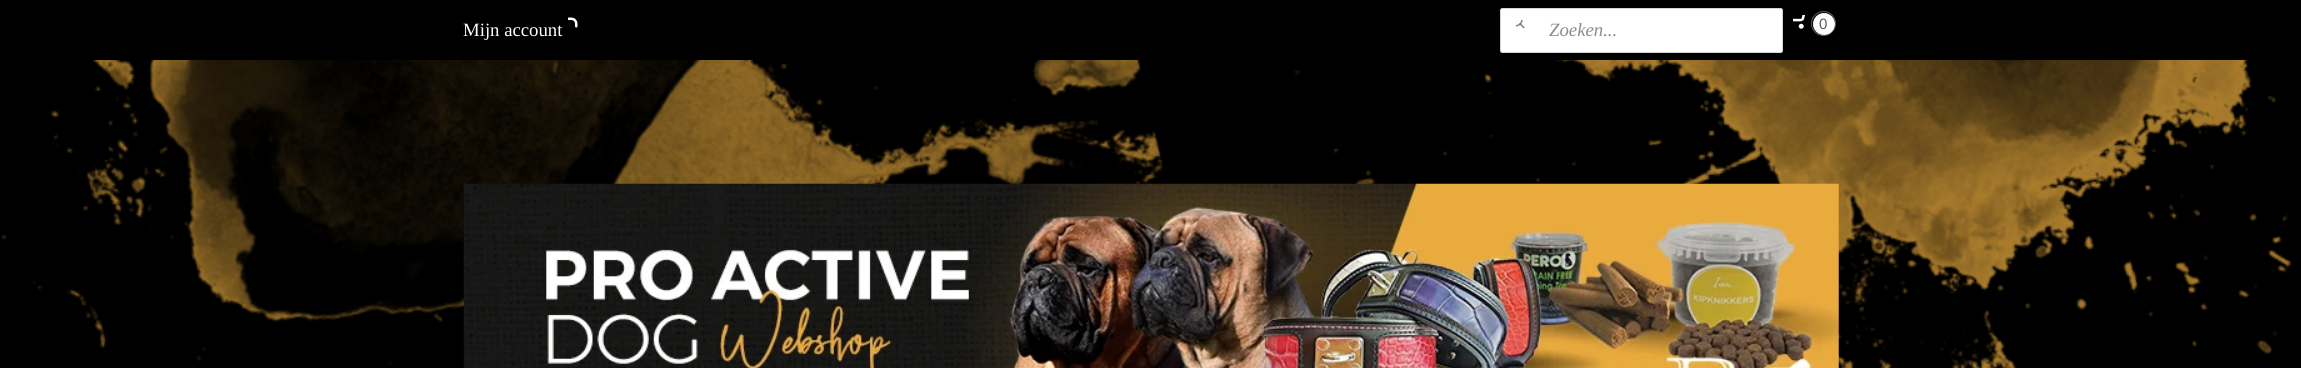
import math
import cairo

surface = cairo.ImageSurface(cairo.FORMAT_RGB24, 2301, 368)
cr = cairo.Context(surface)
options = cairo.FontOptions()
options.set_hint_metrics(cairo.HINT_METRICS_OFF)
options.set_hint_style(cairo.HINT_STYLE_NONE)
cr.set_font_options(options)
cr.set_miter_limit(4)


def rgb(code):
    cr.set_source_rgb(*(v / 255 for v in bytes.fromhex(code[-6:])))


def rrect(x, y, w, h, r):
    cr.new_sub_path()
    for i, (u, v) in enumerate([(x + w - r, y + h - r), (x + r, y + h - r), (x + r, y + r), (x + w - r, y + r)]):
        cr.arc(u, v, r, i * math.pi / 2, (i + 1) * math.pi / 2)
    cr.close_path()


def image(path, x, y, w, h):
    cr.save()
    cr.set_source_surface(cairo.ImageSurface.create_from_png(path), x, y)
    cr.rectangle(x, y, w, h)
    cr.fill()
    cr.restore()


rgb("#000000")
cr.paint()
image("img/1.png", 568, 17, 10, 11)
rgb("#ffffff")
rrect(1500.5, 8.5, 282, 44, 2)
cr.fill_preserve()
rgb("#d3d5d9")
cr.set_line_width(1)
cr.stroke()
image("img/2.png", 1516, 20, 9, 9)
image("img/3.png", 1793, 15, 12, 14)
cr.arc(1823.5, 23.5, 12, 0, 2 * math.pi)
rgb("#575b62")
cr.stroke()
rgb("#ffffff")
cr.arc(1824, 24, 11, 0, 2 * math.pi)
cr.fill()
image("img/4.png", 1, 60, 2291, 308)
image("img/5.png", 463, 183, 1376, 185)
cr.select_font_face("Liberation Serif")
cr.set_font_size(18.75)
cr.move_to(463, 36)
cr.show_text("Mijn account")
cr.select_font_face("Liberation Serif", cairo.FONT_SLANT_ITALIC)
rgb("#898c91")
cr.move_to(1549, 36)
cr.show_text("Zoeken...")
cr.select_font_face("Liberation Sans")
cr.set_font_size(15)
rgb("#575b62")
cr.move_to(1819, 29)
cr.show_text("0")
surface.write_to_png("page.png")
